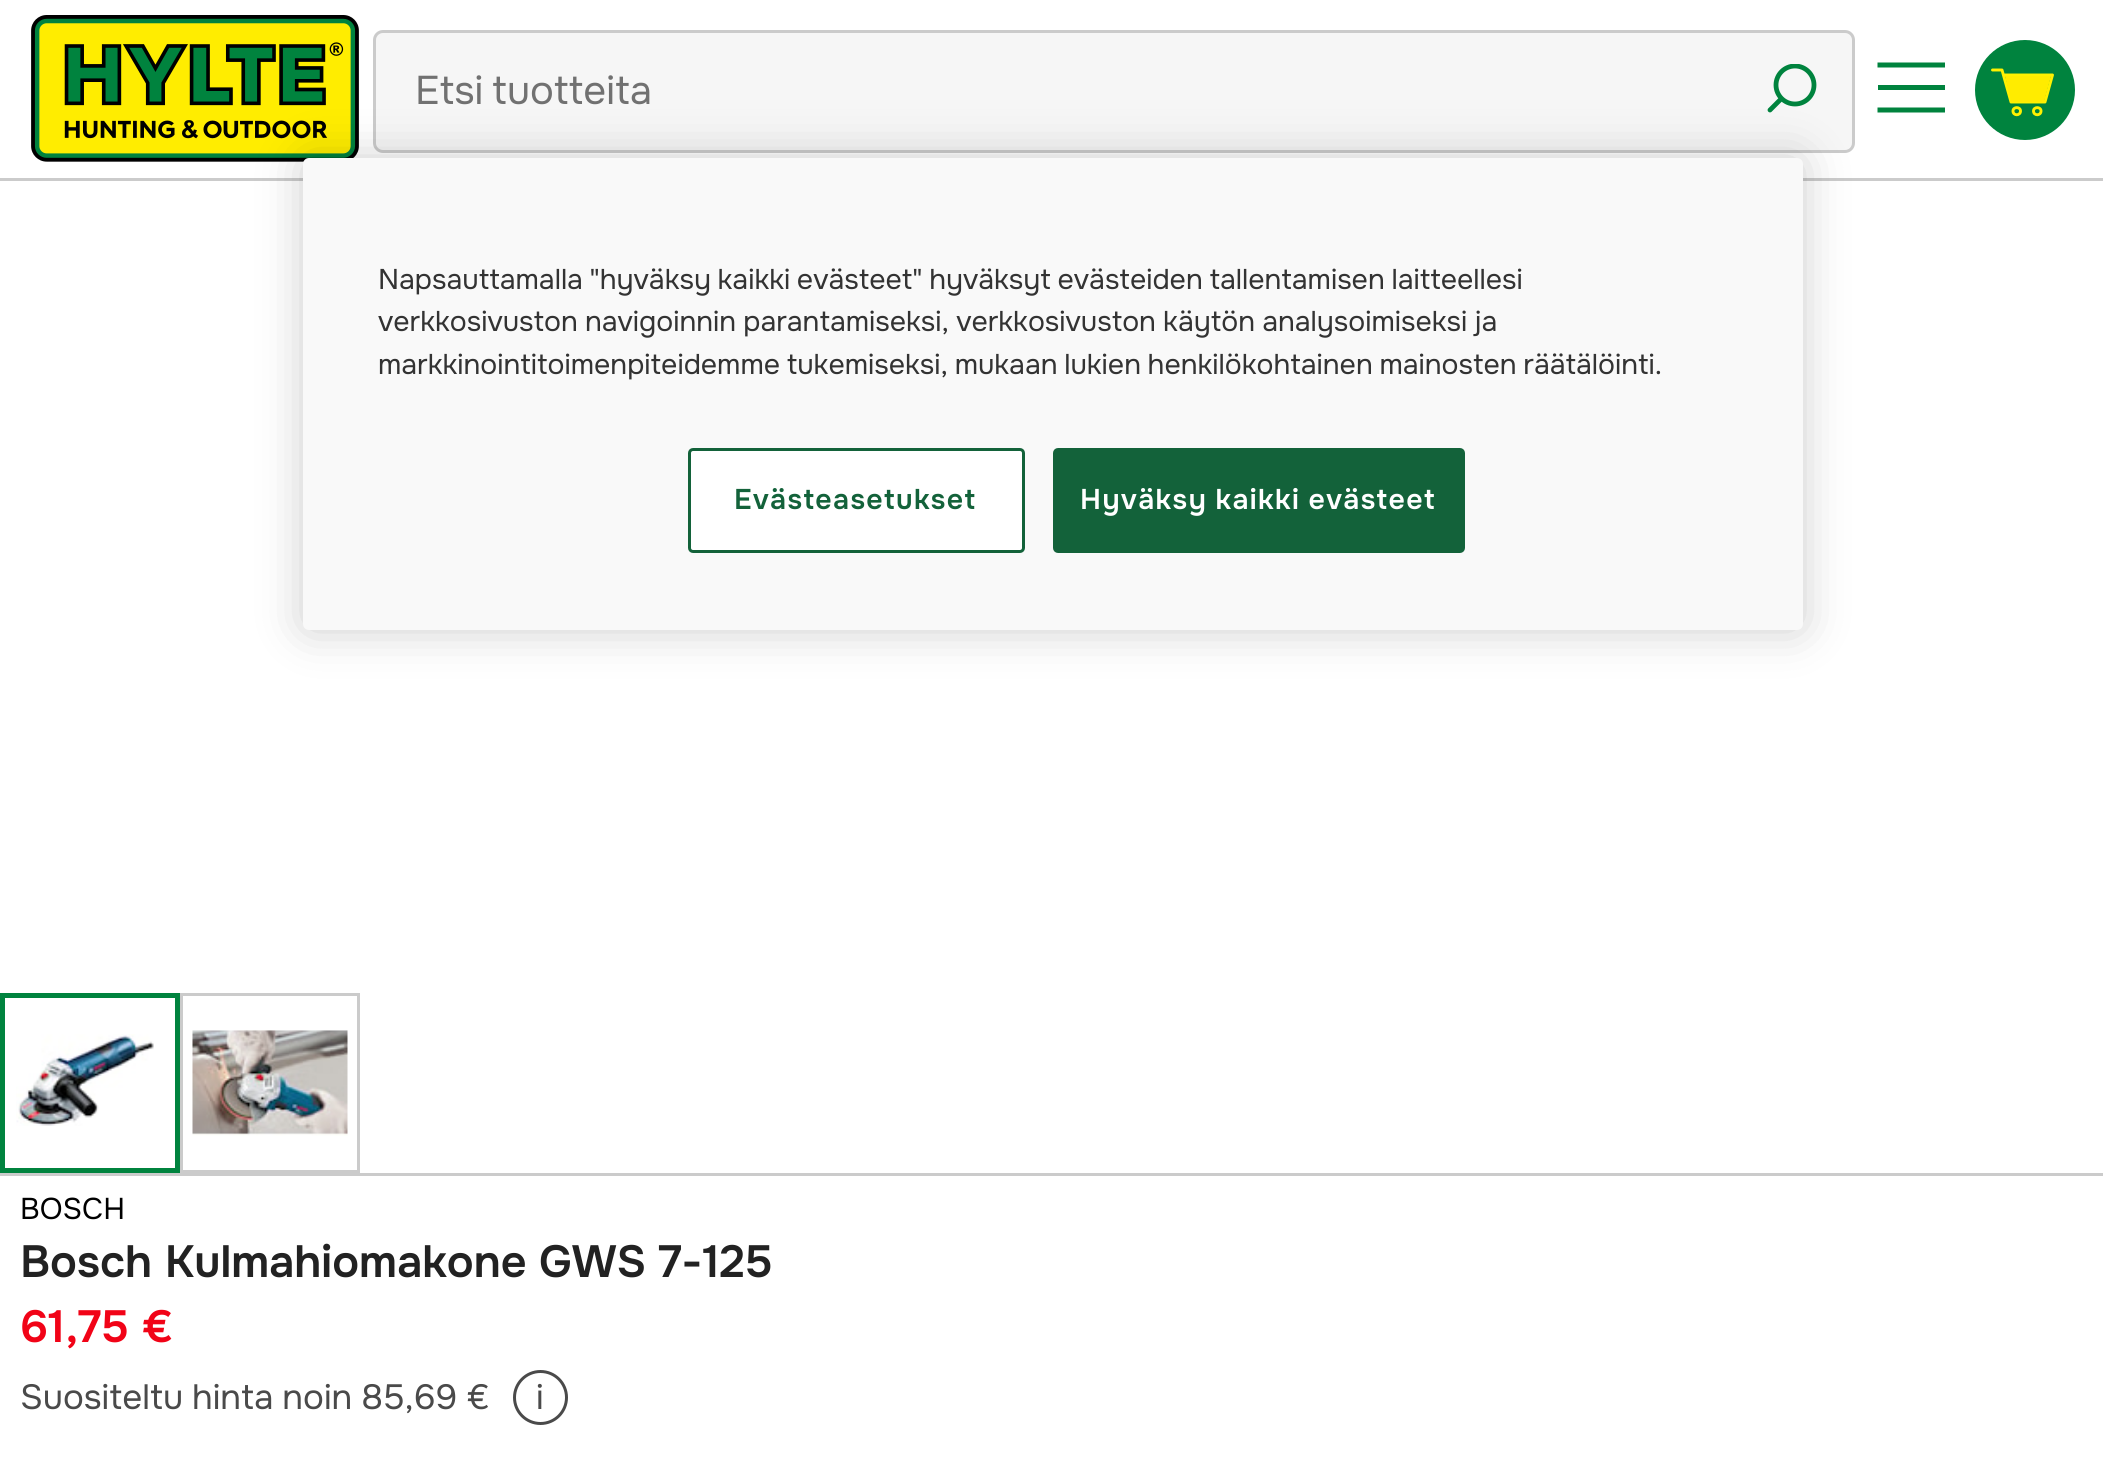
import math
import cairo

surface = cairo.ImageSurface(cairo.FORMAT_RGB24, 2103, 1467)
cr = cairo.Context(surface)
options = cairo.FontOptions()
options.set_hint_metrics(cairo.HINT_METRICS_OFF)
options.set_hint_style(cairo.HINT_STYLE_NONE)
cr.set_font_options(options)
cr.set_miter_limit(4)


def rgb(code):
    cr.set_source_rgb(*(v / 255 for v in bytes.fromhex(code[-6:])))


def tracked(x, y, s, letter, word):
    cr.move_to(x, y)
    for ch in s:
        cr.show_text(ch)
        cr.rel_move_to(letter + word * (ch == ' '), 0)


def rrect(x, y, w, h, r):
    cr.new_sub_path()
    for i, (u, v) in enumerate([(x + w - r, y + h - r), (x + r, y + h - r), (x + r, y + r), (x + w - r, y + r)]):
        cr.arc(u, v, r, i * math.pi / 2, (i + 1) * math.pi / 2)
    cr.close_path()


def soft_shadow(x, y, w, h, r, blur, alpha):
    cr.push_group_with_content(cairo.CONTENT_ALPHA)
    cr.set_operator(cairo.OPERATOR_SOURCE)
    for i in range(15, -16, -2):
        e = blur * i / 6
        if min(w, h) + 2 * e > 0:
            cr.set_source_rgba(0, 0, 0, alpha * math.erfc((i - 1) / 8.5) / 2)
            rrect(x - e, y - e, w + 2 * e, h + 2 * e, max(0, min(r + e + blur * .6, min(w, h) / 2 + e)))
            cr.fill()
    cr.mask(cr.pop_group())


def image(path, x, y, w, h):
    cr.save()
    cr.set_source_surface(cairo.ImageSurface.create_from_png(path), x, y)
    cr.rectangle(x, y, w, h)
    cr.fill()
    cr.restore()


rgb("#ffffff")
cr.paint()
rgb("#cbcbcb")
cr.rectangle(0, 178, 2103, 3)
cr.fill()
image("img/1.png", 31, 15, 328, 147)
rgb("#f6f6f6")
rrect(374.5, 31.5, 1479, 120, 8.5)
cr.fill_preserve()
rgb("#cbcbcb")
cr.set_line_width(3)
cr.stroke()
cr.save()
cr.new_path()
cr.move_to(1817, 64)
cr.line_to(1817, 114)
cr.line_to(1767, 114)
cr.line_to(1767, 64)
cr.close_path()
cr.clip()
cr.new_path()
cr.move_to(1814, 85)
cr.curve_to(1814, 95.5, 1805.5, 104, 1795, 104)
cr.curve_to(1784.5, 104, 1776, 95.5, 1776, 85)
cr.curve_to(1776, 74.5, 1784.5, 66, 1795, 66)
cr.curve_to(1805.5, 66, 1814, 74.5, 1814, 85)
cr.close_path()
rgb("#00833e")
cr.set_line_width(4.8)
cr.stroke()
cr.restore()
cr.new_path()
cr.move_to(1780.5, 99.5)
cr.line_to(1770, 110)
rgb("#00833e")
cr.set_line_width(4.8)
cr.set_line_cap(cairo.LINE_CAP_ROUND)
cr.stroke()
cr.new_path()
cr.move_to(1877.5, 65)
cr.line_to(1945, 65)
cr.set_line_width(5)
cr.set_line_cap(cairo.LINE_CAP_BUTT)
cr.stroke()
cr.rectangle(1878, 85, 67, 5)
cr.fill()
cr.new_path()
cr.move_to(1877.5, 110)
cr.line_to(1945, 110)
cr.stroke()
cr.arc(2025, 90, 50, 0, 2 * math.pi)
cr.fill()
cr.new_path()
cr.move_to(2004, 75)
cr.line_to(2052.5, 75)
cr.line_to(2045, 102)
cr.line_to(2011, 102)
cr.line_to(2002, 70)
cr.line_to(1992.5, 70)
cr.move_to(2020.5, 111)
cr.curve_to(2020.5, 116, 2013, 116, 2013, 111)
cr.curve_to(2013, 106.5, 2020.5, 106.5, 2020.5, 111)
cr.close_path()
cr.move_to(2041, 111)
cr.curve_to(2041, 116, 2033.5, 116, 2033.5, 111)
cr.curve_to(2033.5, 106.5, 2041, 106.5, 2041, 111)
cr.close_path()
rgb("#fff101")
cr.set_line_width(2.9)
cr.set_line_cap(cairo.LINE_CAP_ROUND)
cr.set_line_join(cairo.LINE_JOIN_ROUND)
cr.stroke()
rgb("#ffec00")
cr.set_fill_rule(cairo.FILL_RULE_EVEN_ODD)
cr.new_path()
cr.move_to(2005, 76)
cr.line_to(2051, 76)
cr.line_to(2044, 102)
cr.line_to(2011, 102)
cr.line_to(2005, 76)
cr.fill()
rgb("#cbcbcb")
cr.rectangle(0, 1173, 2103, 3)
cr.fill()
cr.rectangle(2.5, 995.5, 175, 175)
rgb("#00833e")
cr.set_line_width(5)
cr.set_line_cap(cairo.LINE_CAP_BUTT)
cr.set_line_join(cairo.LINE_JOIN_MITER)
cr.stroke()
image("img/2.png", 16, 1034, 138, 92)
cr.rectangle(181.5, 994.5, 177, 177)
rgb("#cbcbcb")
cr.set_line_width(3)
cr.stroke()
image("img/3.png", 192, 1030, 156, 106)
cr.arc(540.5, 1397.5, 26, 0, 2 * math.pi)
rgb("#4a4a4a")
cr.stroke()
rgb("#000000")
soft_shadow(303, 158, 1500, 472, 6, 22.5, 0.2)
rgb("#f9f9f9")
rrect(303, 158, 1500, 472, 6)
cr.fill()
rgb("#ffffff")
rrect(689.5, 449.5, 334, 102, 3.5)
cr.fill_preserve()
rgb("#13623a")
cr.stroke()
rrect(1054.5, 449.5, 409, 102, 3.5)
cr.fill_preserve()
cr.stroke()
cr.select_font_face("Onest")
cr.set_font_size(40)
rgb("#717171")
tracked(415, 104, "Etsi tuotteita", 0, -2)
cr.set_font_size(30)
rgb("#000000")
cr.move_to(20, 1219)
cr.show_text("BOSCH")
cr.select_font_face("Onest SemiBold")
cr.set_font_size(45)
rgb("#222222")
cr.move_to(20, 1277)
cr.show_text("Bosch Kulmahiomakone GWS 7-125")
rgb("#f10317")
cr.move_to(20, 1342)
cr.show_text("61,75 €")
cr.select_font_face("Onest")
cr.set_font_size(35)
rgb("#4a4a4a")
tracked(20, 1409, "Suositeltu hinta noin 85,69 €", 0, -0.5)
cr.move_to(536, 1409)
cr.show_text("i")
cr.set_font_size(28.45)
rgb("#333333")
tracked(378, 289, "Napsauttamalla \"hyväksy kaikki evästeet\" hyväksyt evästeiden tallentamisen laitteellesi", 0, -1)
tracked(378, 331, "verkkosivuston navigoinnin parantamiseksi, verkkosivuston käytön analysoimiseksi ja", 0, -0.5)
tracked(378, 374, "markkinointitoimenpiteidemme tukemiseksi, mukaan lukien henkilökohtainen mainosten räätälöinti.", 0, -1)
cr.select_font_face("Onest SemiBold")
rgb("#13623a")
tracked(734, 509, "Evästeasetukset", 1.4, 0)
rgb("#ffffff")
tracked(1080, 509, "Hyväksy kaikki evästeet", 1.4, -1)
surface.write_to_png("page.png")
